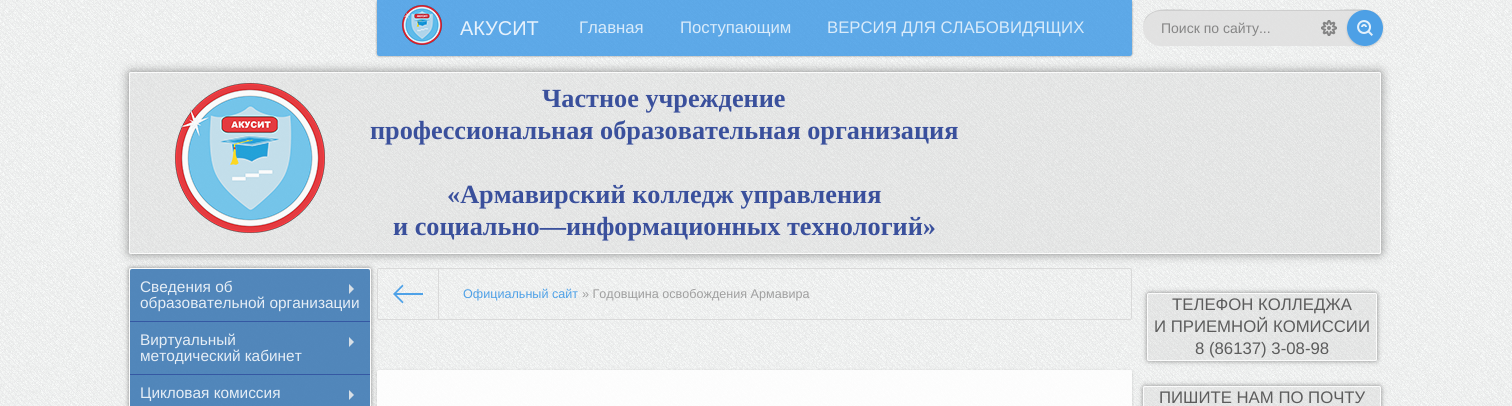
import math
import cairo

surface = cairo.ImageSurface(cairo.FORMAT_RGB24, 1512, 406)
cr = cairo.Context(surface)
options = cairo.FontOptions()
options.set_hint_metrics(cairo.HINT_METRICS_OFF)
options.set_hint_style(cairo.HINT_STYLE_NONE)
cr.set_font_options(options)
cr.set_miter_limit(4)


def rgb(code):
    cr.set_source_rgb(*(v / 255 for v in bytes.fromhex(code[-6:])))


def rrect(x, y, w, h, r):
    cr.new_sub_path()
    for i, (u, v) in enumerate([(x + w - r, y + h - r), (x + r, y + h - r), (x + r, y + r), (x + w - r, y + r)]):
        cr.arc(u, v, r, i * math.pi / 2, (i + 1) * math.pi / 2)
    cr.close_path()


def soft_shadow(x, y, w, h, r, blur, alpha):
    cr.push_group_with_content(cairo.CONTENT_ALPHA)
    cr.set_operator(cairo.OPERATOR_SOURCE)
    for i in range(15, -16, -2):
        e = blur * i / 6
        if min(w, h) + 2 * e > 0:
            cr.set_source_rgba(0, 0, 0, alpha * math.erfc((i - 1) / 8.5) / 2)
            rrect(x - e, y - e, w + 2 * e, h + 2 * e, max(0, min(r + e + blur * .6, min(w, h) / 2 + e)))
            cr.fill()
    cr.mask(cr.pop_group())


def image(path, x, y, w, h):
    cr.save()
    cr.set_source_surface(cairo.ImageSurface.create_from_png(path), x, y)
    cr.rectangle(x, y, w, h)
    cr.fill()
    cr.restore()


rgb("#ffffff")
cr.paint()
image("img/1.png", 0, 0, 1512, 406)
cr.save()
cr.set_fill_rule(cairo.FILL_RULE_EVEN_ODD)
cr.new_path()
cr.move_to(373, 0)
cr.line_to(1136, 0)
cr.line_to(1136, 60)
cr.line_to(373, 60)
cr.close_path()
cr.move_to(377, 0)
cr.line_to(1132, 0)
cr.line_to(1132, 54)
cr.curve_to(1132, 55, 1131, 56, 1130, 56)
cr.line_to(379, 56)
cr.curve_to(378, 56, 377, 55, 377, 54)
cr.close_path()
cr.clip()
rgb("#000000")
soft_shadow(377, 0, 755, 56, 2, 1, 0.43)
cr.restore()
cr.set_source_rgba(0.2, 0.58, 0.902, 0.77)
cr.new_path()
cr.move_to(377, 0)
cr.line_to(1132, 0)
cr.line_to(1132, 54)
cr.curve_to(1132, 55, 1131, 56, 1130, 56)
cr.line_to(379, 56)
cr.curve_to(378, 56, 377, 55, 377, 54)
cr.close_path()
cr.fill()
image("img/2.png", 402, 5, 40, 40)
cr.set_source_rgba(0.875, 0.875, 0.875, 0.85)
rrect(1143, 10, 240, 36, 18)
cr.fill()
cr.set_source_rgba(0, 0, 0, 0.09)
cr.new_path()
cr.move_to(1161, 11)
cr.line_to(1365, 11)
cr.curve_to(1375, 11, 1383, 19, 1383, 28)
cr.curve_to(1384, 2, 1344, 10, 1331, 10)
cr.line_to(1195, 10)
cr.curve_to(1182, 10, 1142, 2, 1143, 28)
cr.curve_to(1143, 19, 1151, 11, 1161, 11)
cr.close_path()
cr.fill()
image("img/3.png", 1321, 20, 16, 16)
cr.save()
cr.set_fill_rule(cairo.FILL_RULE_EVEN_ODD)
cr.new_path()
cr.move_to(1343, 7)
cr.line_to(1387, 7)
cr.line_to(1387, 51)
cr.line_to(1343, 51)
cr.close_path()
cr.move_to(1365, 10)
cr.curve_to(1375, 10, 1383, 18, 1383, 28)
cr.curve_to(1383, 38, 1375, 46, 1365, 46)
cr.curve_to(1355, 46, 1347, 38, 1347, 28)
cr.curve_to(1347, 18, 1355, 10, 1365, 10)
cr.close_path()
cr.clip()
rgb("#000000")
soft_shadow(1347, 11, 36, 36, 18, 1, 0.17)
cr.restore()
cr.set_source_rgba(0.2, 0.58, 0.902, 0.85)
cr.arc(1365, 28, 18, 0, 2 * math.pi)
cr.fill()
image("img/4.png", 1357, 20, 16, 16)
cr.save()
cr.set_fill_rule(cairo.FILL_RULE_EVEN_ODD)
cr.new_path()
cr.move_to(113, 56)
cr.line_to(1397, 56)
cr.line_to(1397, 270)
cr.line_to(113, 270)
cr.close_path()
cr.move_to(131, 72)
cr.line_to(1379, 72)
cr.curve_to(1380, 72, 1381, 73, 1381, 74)
cr.line_to(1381, 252)
cr.curve_to(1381, 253, 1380, 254, 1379, 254)
cr.line_to(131, 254)
cr.curve_to(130, 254, 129, 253, 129, 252)
cr.line_to(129, 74)
cr.curve_to(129, 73, 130, 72, 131, 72)
cr.close_path()
cr.clip()
rgb("#000000")
soft_shadow(129, 72, 1252, 182, 2, 5, 0.43)
cr.restore()
cr.set_source_rgba(0.784, 0.784, 0.784, 0.26)
rrect(129, 72, 1252, 182, 2)
cr.fill()
rrect(129.5, 72.5, 1251, 181, 1.5)
cr.set_source_rgba(1, 1, 1, 0.85)
cr.set_line_width(1)
cr.stroke()
image("img/5.png", 175, 83, 150, 150)
rrect(377.5, 268.5, 754, 51, 1.5)
cr.set_source_rgba(0.839, 0.839, 0.839, 0.85)
cr.stroke()
cr.save()
cr.set_fill_rule(cairo.FILL_RULE_EVEN_ODD)
cr.new_path()
cr.move_to(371, 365)
cr.line_to(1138, 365)
cr.line_to(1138, 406)
cr.line_to(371, 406)
cr.close_path()
cr.move_to(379, 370)
cr.line_to(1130, 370)
cr.curve_to(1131, 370, 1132, 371, 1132, 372)
cr.line_to(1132, 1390)
cr.curve_to(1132, 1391, 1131, 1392, 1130, 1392)
cr.line_to(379, 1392)
cr.curve_to(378, 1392, 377, 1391, 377, 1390)
cr.line_to(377, 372)
cr.curve_to(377, 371, 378, 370, 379, 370)
cr.close_path()
cr.clip()
rgb("#000000")
soft_shadow(377, 371, 755, 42, 2, 1.5, 0.17)
cr.restore()
cr.set_source_rgba(1, 1, 1, 0.85)
rrect(377, 370, 755, 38, 2)
cr.fill()
cr.save()
cr.set_fill_rule(cairo.FILL_RULE_EVEN_ODD)
cr.new_path()
cr.move_to(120, 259)
cr.line_to(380, 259)
cr.line_to(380, 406)
cr.line_to(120, 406)
cr.close_path()
cr.move_to(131, 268)
cr.line_to(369, 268)
cr.curve_to(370, 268, 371, 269, 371, 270)
cr.line_to(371, 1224)
cr.curve_to(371, 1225, 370, 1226, 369, 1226)
cr.line_to(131, 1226)
cr.curve_to(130, 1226, 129, 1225, 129, 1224)
cr.line_to(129, 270)
cr.curve_to(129, 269, 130, 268, 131, 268)
cr.close_path()
cr.clip()
rgb("#000000")
soft_shadow(129, 268, 242, 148, 2, 2.5, 0.43)
cr.restore()
cr.set_source_rgba(0.784, 0.784, 0.784, 0.26)
rrect(129, 268, 242, 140, 2)
cr.fill()
rrect(129.5, 268.5, 241, 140, 1.5)
cr.set_source_rgba(1, 1, 1, 0.85)
cr.stroke()
cr.set_source_rgba(0.22, 0.463, 0.702, 0.85)
cr.new_path()
cr.move_to(132, 269)
cr.line_to(368, 269)
cr.curve_to(369, 269, 370, 270, 370, 271)
cr.line_to(370, 322)
cr.line_to(130, 322)
cr.line_to(130, 271)
cr.curve_to(130, 270, 131, 269, 132, 269)
cr.close_path()
cr.fill()
rgb("#3558a3")
cr.rectangle(130, 321, 240, 1)
cr.fill()
rgb("#d7dfe6")
cr.new_path()
cr.move_to(349, 294)
cr.line_to(349, 284)
cr.line_to(354, 289)
cr.close_path()
cr.fill()
cr.set_source_rgba(0.22, 0.463, 0.702, 0.85)
cr.rectangle(130, 322, 240, 52)
cr.fill()
rgb("#3558a3")
cr.rectangle(130, 374, 240, 1)
cr.fill()
rgb("#d7dfe6")
cr.new_path()
cr.move_to(349, 347)
cr.line_to(349, 337)
cr.line_to(354, 342)
cr.close_path()
cr.fill()
cr.set_source_rgba(0.22, 0.463, 0.702, 0.85)
cr.rectangle(130, 375, 240, 31)
cr.fill()
rgb("#d7dfe6")
cr.new_path()
cr.move_to(349, 400)
cr.line_to(349, 390)
cr.line_to(354, 395)
cr.close_path()
cr.fill()
cr.set_source_rgba(0.839, 0.839, 0.839, 0.85)
cr.rectangle(438, 269, 1, 50)
cr.fill()
cr.set_source_rgba(0.2, 0.58, 0.902, 0.85)
cr.new_path()
cr.move_to(423, 295)
cr.line_to(396.5, 295)
cr.line_to(403.5, 302)
cr.line_to(402.5, 303.5)
cr.line_to(393, 294)
cr.line_to(402.5, 284.5)
cr.line_to(403.5, 286)
cr.line_to(396.5, 293)
cr.line_to(423, 293)
cr.close_path()
cr.fill()
cr.save()
cr.set_fill_rule(cairo.FILL_RULE_EVEN_ODD)
cr.new_path()
cr.move_to(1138, 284)
cr.line_to(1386, 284)
cr.line_to(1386, 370)
cr.line_to(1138, 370)
cr.close_path()
cr.move_to(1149, 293)
cr.line_to(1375, 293)
cr.curve_to(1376, 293, 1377, 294, 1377, 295)
cr.line_to(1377, 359)
cr.curve_to(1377, 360, 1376, 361, 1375, 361)
cr.line_to(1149, 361)
cr.curve_to(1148, 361, 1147, 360, 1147, 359)
cr.line_to(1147, 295)
cr.curve_to(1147, 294, 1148, 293, 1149, 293)
cr.close_path()
cr.clip()
rgb("#000000")
soft_shadow(1147, 293, 230, 68, 2, 2.5, 0.43)
cr.restore()
cr.set_source_rgba(0.784, 0.784, 0.784, 0.26)
rrect(1147, 293, 230, 68, 2)
cr.fill()
rrect(1147.5, 293.5, 229, 67, 1.5)
cr.set_source_rgba(1, 1, 1, 0.85)
cr.stroke()
cr.save()
cr.set_fill_rule(cairo.FILL_RULE_EVEN_ODD)
cr.new_path()
cr.move_to(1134, 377)
cr.line_to(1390, 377)
cr.line_to(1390, 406)
cr.line_to(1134, 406)
cr.close_path()
cr.move_to(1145, 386)
cr.line_to(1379, 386)
cr.curve_to(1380, 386, 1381, 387, 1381, 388)
cr.line_to(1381, 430)
cr.curve_to(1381, 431, 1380, 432, 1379, 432)
cr.line_to(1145, 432)
cr.curve_to(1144, 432, 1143, 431, 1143, 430)
cr.line_to(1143, 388)
cr.curve_to(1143, 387, 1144, 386, 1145, 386)
cr.close_path()
cr.clip()
rgb("#000000")
soft_shadow(1143, 386, 238, 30, 2, 2.5, 0.43)
cr.restore()
cr.set_source_rgba(0.784, 0.784, 0.784, 0.26)
rrect(1143, 386, 238, 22, 2)
cr.fill()
rrect(1143.5, 386.5, 237, 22, 1.5)
cr.set_source_rgba(1, 1, 1, 0.85)
cr.stroke()
cr.select_font_face("Liberation Sans")
cr.set_font_size(20)
rgb("#e7f2fc")
cr.move_to(460, 35)
cr.show_text("АКУСИТ")
cr.set_font_size(16.75)
rgb("#d9ebfa")
for x, y, s in [
    (579, 33, "Главная"),
    (680, 33, "Поступающим"),
    (827, 33, "ВЕРСИЯ ДЛЯ СЛАБОВИДЯЩИХ"),
]:
    cr.move_to(x, y)
    cr.show_text(s)
cr.set_font_size(14)
rgb("#858585")
cr.move_to(1161, 33)
cr.show_text("Поиск по сайту...")
cr.select_font_face("Liberation Serif", cairo.FONT_SLANT_NORMAL, cairo.FONT_WEIGHT_BOLD)
cr.set_font_size(26.25)
rgb("#3a509c")
for x, y, s in [
    (542, 107, "Частное учреждение"),
    (370, 139, "профессиональная образовательная организация"),
    (447, 203, "«Армавирский колледж управления"),
    (393, 235, "и социально—информационных технологий»"),
]:
    cr.move_to(x, y)
    cr.show_text(s)
cr.select_font_face("Liberation Sans")
cr.set_font_size(15.4)
rgb("#e5edf5")
for x, y, s in [
    (140, 292, "Сведения об"),
    (140, 308, "образовательной организации"),
    (140, 345, "Виртуальный"),
    (140, 361, "методический кабинет"),
    (140, 398, "Цикловая комиссия"),
]:
    cr.move_to(x, y)
    cr.show_text(s)
cr.set_font_size(12.6)
rgb("#4fa1e7")
cr.move_to(463, 298)
cr.show_text("Официальный сайт")
rgb("#9f9f9f")
cr.move_to(582, 298)
cr.show_text("» Годовщина освобождения Армавира")
cr.set_font_size(16.75)
rgb("#5c5c5c")
for x, y, s in [
    (1172, 310, "ТЕЛЕФОН КОЛЛЕДЖА"),
    (1154, 332, "И ПРИЕМНОЙ КОМИССИИ"),
    (1195, 354, "8 (86137) 3-08-98"),
    (1159, 403, "ПИШИТЕ НАМ ПО ПОЧТУ"),
]:
    cr.move_to(x, y)
    cr.show_text(s)
surface.write_to_png("page.png")
